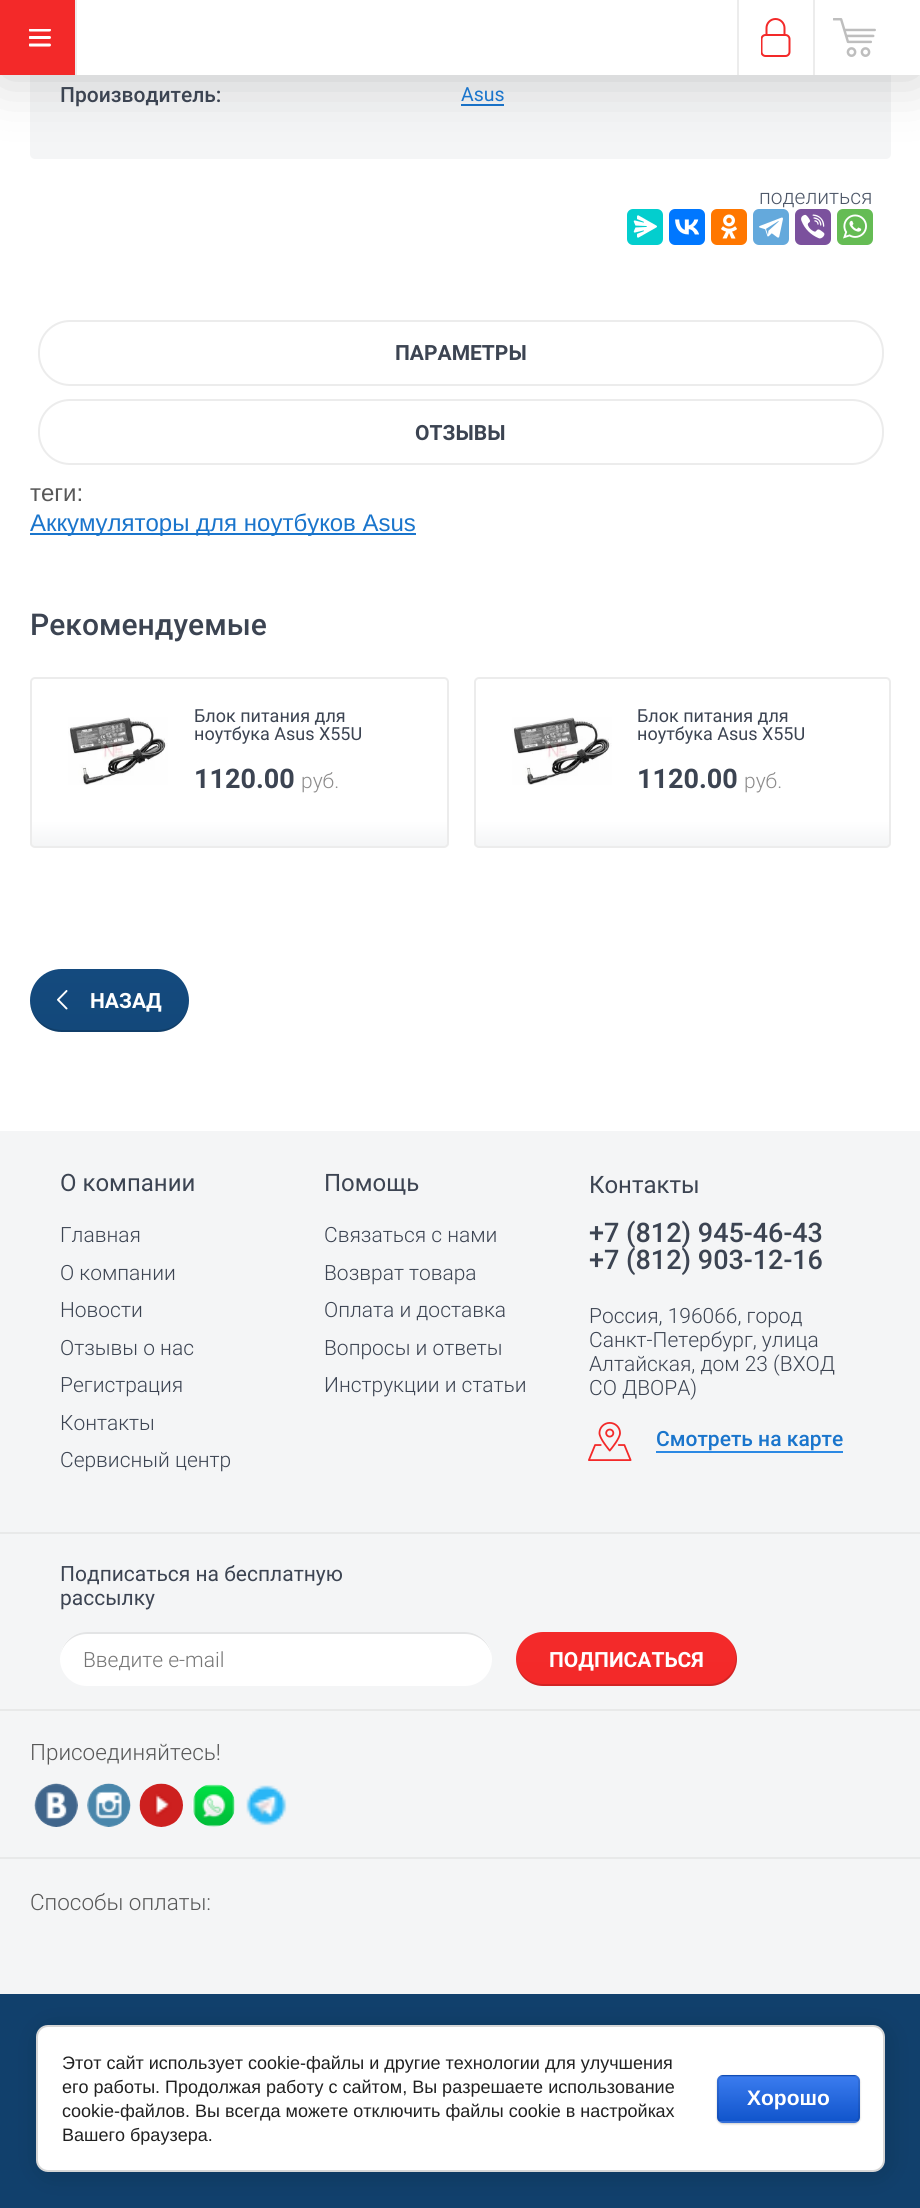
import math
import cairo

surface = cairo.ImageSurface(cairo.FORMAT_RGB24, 920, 2208)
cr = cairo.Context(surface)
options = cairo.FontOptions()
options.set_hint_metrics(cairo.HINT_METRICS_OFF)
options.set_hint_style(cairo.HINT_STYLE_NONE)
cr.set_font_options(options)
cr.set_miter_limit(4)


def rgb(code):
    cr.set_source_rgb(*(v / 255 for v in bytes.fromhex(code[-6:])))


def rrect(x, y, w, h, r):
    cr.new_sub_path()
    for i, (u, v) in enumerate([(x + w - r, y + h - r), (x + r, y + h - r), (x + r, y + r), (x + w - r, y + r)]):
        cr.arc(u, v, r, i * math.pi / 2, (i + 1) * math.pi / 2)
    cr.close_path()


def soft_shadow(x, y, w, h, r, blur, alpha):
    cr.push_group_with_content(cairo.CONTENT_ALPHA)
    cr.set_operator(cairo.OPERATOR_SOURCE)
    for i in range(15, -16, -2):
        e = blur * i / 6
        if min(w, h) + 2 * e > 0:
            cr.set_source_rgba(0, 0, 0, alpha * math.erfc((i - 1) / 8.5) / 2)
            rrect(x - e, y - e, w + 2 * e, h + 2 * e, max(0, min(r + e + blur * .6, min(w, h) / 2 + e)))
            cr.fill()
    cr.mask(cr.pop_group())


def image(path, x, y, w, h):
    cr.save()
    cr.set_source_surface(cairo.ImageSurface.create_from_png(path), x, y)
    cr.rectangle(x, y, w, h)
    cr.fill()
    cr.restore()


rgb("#ffffff")
cr.paint()
rgb("#f4f5f6")
rrect(30, -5, 861, 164, 5)
cr.fill()
rgb("#1a75cc")
cr.rectangle(461, 104, 43, 2)
cr.fill()
rgb("#000000")
soft_shadow(0, 2, 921, 75, 0, 30, 0.2)
rgb("#ffffff")
cr.rectangle(77, 0, 843, 75)
cr.fill()
rgb("#f32929")
cr.rectangle(0, 0, 75, 75)
cr.fill()
image("img/1.png", 29, 29, 22, 18)
for x, y, w, h, color in [
    (75, 0, 2, 75, "#ececec"),
    (737, 0, 2, 75, "#ececec"),
    (813, 0, 2, 75, "#ececec"),
]:
    rgb(color)
    cr.rectangle(x, y, w, h)
    cr.fill()
image("img/2.png", 761, 18, 30, 39)
image("img/3.png", 833, 18, 43, 39)
rgb("#03cece")
rrect(627, 209, 36, 36, 6)
cr.fill()
image("img/4.png", 633, 215, 24, 23)
rgb("#0077ff")
rrect(669, 209, 36, 36, 6)
cr.fill()
image("img/5.png", 675, 219, 24, 16)
rgb("#ff7700")
rrect(711, 209, 36, 36, 6)
cr.fill()
image("img/6.png", 721, 214, 16, 25)
rgb("#64a9dc")
rrect(753, 209, 36, 36, 6)
cr.fill()
image("img/7.png", 759, 217, 24, 21)
rgb("#7b519d")
rrect(795, 209, 36, 36, 6)
cr.fill()
image("img/8.png", 801, 214, 24, 25)
rgb("#65bc54")
rrect(837, 209, 36, 36, 6)
cr.fill()
image("img/9.png", 843, 214, 24, 25)
rrect(39, 321, 844, 64, 31)
rgb("#ececec")
cr.stroke()
rrect(39, 400, 844, 64, 31)
cr.stroke()
rgb("#1a75cc")
cr.rectangle(30, 533, 386, 2)
cr.fill()
cr.save()
rrect(30, 677, 419, 171, 5)
cr.clip()
gradient = cairo.LinearGradient(239, 846, 239, 678)
gradient.add_color_stop_rgba(0, 0.957, 0.961, 0.965, 1)
gradient.add_color_stop_rgba(0.15, 1, 1, 1, 1)
cr.set_source(gradient)
cr.rectangle(30, 678, 419, 168)
cr.fill()
cr.restore()
rrect(31, 678, 417, 169, 4)
rgb("#ececec")
cr.stroke()
image("img/10.png", 68, 717, 100, 68)
cr.save()
rrect(474, 677, 417, 171, 5)
cr.clip()
gradient = cairo.LinearGradient(683, 846, 683, 678)
gradient.add_color_stop_rgba(0, 0.957, 0.961, 0.965, 1)
gradient.add_color_stop_rgba(0.15, 1, 1, 1, 1)
cr.set_source(gradient)
cr.rectangle(474, 678, 417, 168)
cr.fill()
cr.restore()
rrect(475, 678, 415, 169, 4)
cr.stroke()
image("img/11.png", 512, 717, 100, 68)
gradient = cairo.LinearGradient(110, 1032, 110, 969)
gradient.add_color_stop_rgba(0, 0.075, 0.282, 0.478, 1)
gradient.add_color_stop_rgba(1, 0.078, 0.29, 0.494, 1)
cr.set_source(gradient)
rrect(30, 969, 159, 63, 31.5)
cr.fill()
cr.set_source_rgba(0, 0, 0, 0.14)
cr.new_path()
cr.move_to(30, 1000)
cr.curve_to(30, 1018, 44, 1032, 62, 1032)
cr.line_to(158, 1032)
cr.curve_to(175, 1032, 189, 1018, 189, 1000)
cr.curve_to(189, 1016, 175, 1030, 158, 1030)
cr.line_to(62, 1030)
cr.curve_to(44, 1030, 30, 1016, 30, 1000)
cr.close_path()
cr.fill()
image("img/12.png", 57, 990, 11, 20)
rgb("#f4f5f6")
cr.rectangle(0, 1131, 920, 863)
cr.fill()
image("img/13.png", 588, 1422, 44, 39)
rgb("#2b89e4")
cr.rectangle(656, 1451, 187, 2)
cr.fill()
rgb("#e8e9e9")
cr.rectangle(0, 1532, 920, 2)
cr.fill()
rgb("#ffffff")
rrect(60, 1632, 432, 54, 27)
cr.fill()
rgb("#e3e4e5")
cr.new_path()
cr.move_to(87, 1634)
cr.line_to(465, 1634)
cr.curve_to(480, 1634, 492, 1646, 492, 1660)
cr.curve_to(492, 1645, 480, 1632, 465, 1632)
cr.line_to(87, 1632)
cr.curve_to(72, 1632, 60, 1645, 60, 1660)
cr.curve_to(60, 1646, 72, 1634, 87, 1634)
cr.close_path()
cr.fill()
gradient = cairo.LinearGradient(626, 1686, 626, 1632)
gradient.add_color_stop_rgba(0, 0.953, 0.161, 0.161, 1)
gradient.add_color_stop_rgba(1, 0.953, 0.165, 0.165, 1)
cr.set_source(gradient)
rrect(516, 1632, 221, 54, 27)
cr.fill()
cr.set_source_rgba(0, 0, 0, 0.14)
cr.new_path()
cr.move_to(516, 1658)
cr.line_to(516, 1659)
cr.curve_to(516, 1674, 528, 1686, 543, 1686)
cr.line_to(710, 1686)
cr.curve_to(725, 1686, 737, 1674, 737, 1659)
cr.curve_to(737, 1653, 735, 1647, 732, 1643)
cr.curve_to(734, 1647, 736, 1653, 736, 1658)
cr.curve_to(736, 1672, 724, 1684, 710, 1684)
cr.line_to(543, 1684)
cr.curve_to(528, 1684, 516, 1672, 516, 1658)
cr.close_path()
cr.fill()
rgb("#e8e9e9")
cr.rectangle(0, 1709, 920, 2)
cr.fill()
image("img/14.png", 34, 1783, 44, 44)
image("img/15.png", 87, 1783, 44, 44)
image("img/16.png", 139, 1783, 44, 44)
image("img/17.png", 192, 1784, 43, 43)
image("img/18.png", 246, 1785, 41, 41)
cr.rectangle(0, 1857, 920, 2)
cr.fill()
rgb("#11406c")
cr.rectangle(0, 1994, 920, 214)
cr.fill()
rgb("#000000")
soft_shadow(39, 2028, 849, 147, 12, 13.5, 0.14)
rgb("#ffffff")
rrect(37, 2026, 847, 145, 11)
cr.fill_preserve()
rgb("#d6d6d6")
cr.stroke()
rgb("#000000")
soft_shadow(717, 2076, 143, 48, 6, 1, 0.2)
cr.save()
rrect(717, 2075, 143, 48, 6)
cr.clip()
gradient = cairo.LinearGradient(788, 2031, 788, 2076)
gradient.add_color_stop_rgba(0, 0.231, 0.486, 0.937, 1)
gradient.add_color_stop_rgba(1, 0.067, 0.333, 0.8, 1)
cr.set_source(gradient)
cr.rectangle(717, 2075, 143, 1)
cr.fill()
gradient = cairo.LinearGradient(788, 2076, 788, 2121)
gradient.add_color_stop_rgba(0, 0.231, 0.486, 0.937, 1)
gradient.add_color_stop_rgba(1, 0.067, 0.333, 0.8, 1)
cr.set_source(gradient)
cr.rectangle(717, 2076, 143, 45)
cr.fill()
gradient = cairo.LinearGradient(788, 2121, 788, 2166)
gradient.add_color_stop_rgba(0, 0.231, 0.486, 0.937, 1)
gradient.add_color_stop_rgba(1, 0.067, 0.333, 0.8, 1)
cr.set_source(gradient)
cr.rectangle(717, 2121, 143, 2)
cr.fill()
cr.restore()
rrect(718, 2076, 141, 46, 5)
cr.set_source_rgba(0, 0, 0, 0.1)
cr.stroke()
cr.select_font_face("Roboto Medium")
cr.set_font_size(21)
rgb("#3c4452")
cr.move_to(60, 102)
cr.show_text("Производитель:")
cr.select_font_face("Roboto")
cr.set_font_size(19.5)
rgb("#1a75cc")
cr.move_to(461, 101)
cr.show_text("Asus")
cr.select_font_face("Roboto Light")
cr.set_font_size(21)
rgb("#4c5667")
cr.move_to(759, 204)
cr.show_text("поделиться")
cr.select_font_face("Roboto", cairo.FONT_SLANT_NORMAL, cairo.FONT_WEIGHT_BOLD)
rgb("#3c4452")
cr.move_to(395, 360)
cr.show_text("ПАРАМЕТРЫ")
cr.move_to(415, 440)
cr.show_text("ОТЗЫВЫ")
cr.select_font_face("Liberation Sans")
cr.set_font_size(24)
rgb("#585858")
cr.move_to(30, 501)
cr.show_text("теги:")
rgb("#1a75cc")
cr.move_to(30, 531)
cr.show_text("Аккумуляторы для ноутбуков Asus")
cr.select_font_face("Roboto Medium")
cr.set_font_size(30)
rgb("#3c4452")
cr.move_to(30, 635)
cr.show_text("Рекомендуемые")
cr.select_font_face("Roboto")
cr.set_font_size(18)
cr.move_to(194, 722)
cr.show_text("Блок питания для")
cr.move_to(194, 740)
cr.show_text("ноутбука Asus X55U")
cr.select_font_face("Roboto", cairo.FONT_SLANT_NORMAL, cairo.FONT_WEIGHT_BOLD)
cr.set_font_size(27)
cr.move_to(194, 788)
cr.show_text("1120.00")
cr.select_font_face("Roboto Light")
cr.set_font_size(21)
rgb("#8c8b8b")
cr.move_to(301, 788)
cr.show_text("руб.")
cr.select_font_face("Roboto")
cr.set_font_size(18)
rgb("#3c4452")
cr.move_to(637, 722)
cr.show_text("Блок питания для")
cr.move_to(637, 740)
cr.show_text("ноутбука Asus X55U")
cr.select_font_face("Roboto", cairo.FONT_SLANT_NORMAL, cairo.FONT_WEIGHT_BOLD)
cr.set_font_size(27)
cr.move_to(637, 788)
cr.show_text("1120.00")
cr.select_font_face("Roboto Light")
cr.set_font_size(21)
rgb("#8c8b8b")
cr.move_to(744, 788)
cr.show_text("руб.")
cr.select_font_face("Roboto", cairo.FONT_SLANT_NORMAL, cairo.FONT_WEIGHT_BOLD)
rgb("#ffffff")
cr.move_to(90, 1008)
cr.show_text("НАЗАД")
cr.select_font_face("Roboto")
cr.set_font_size(24)
rgb("#3c4452")
cr.move_to(60, 1191)
cr.show_text("О компании")
cr.select_font_face("Roboto Light")
cr.set_font_size(21)
for x, y, s in [
    (60, 1242, "Главная"),
    (60, 1280, "О компании"),
    (60, 1317, "Новости"),
    (60, 1355, "Отзывы о нас"),
    (60, 1392, "Регистрация"),
    (60, 1430, "Контакты"),
    (60, 1467, "Сервисный центр"),
]:
    cr.move_to(x, y)
    cr.show_text(s)
cr.select_font_face("Roboto")
cr.set_font_size(24)
cr.move_to(324, 1191)
cr.show_text("Помощь")
cr.select_font_face("Roboto Light")
cr.set_font_size(21)
for x, y, s in [
    (324, 1242, "Связаться с нами"),
    (324, 1280, "Возврат товара"),
    (324, 1317, "Оплата и доставка"),
    (324, 1355, "Вопросы и ответы"),
    (324, 1392, "Инструкции и статьи"),
]:
    cr.move_to(x, y)
    cr.show_text(s)
cr.select_font_face("Roboto")
cr.set_font_size(24)
cr.move_to(589, 1193)
cr.show_text("Контакты")
cr.select_font_face("Roboto Medium")
cr.set_font_size(27)
cr.move_to(589, 1242)
cr.show_text("+7 (812) 945-46-43")
cr.move_to(589, 1269)
cr.show_text("+7 (812) 903-12-16")
cr.select_font_face("Roboto Light")
cr.set_font_size(21)
for x, y, s in [
    (589, 1323, "Россия, 196066, город"),
    (589, 1347, "Санкт-Петербург, улица"),
    (589, 1371, "Алтайская, дом 23 (ВХОД"),
    (589, 1395, "СО ДВОРА)"),
]:
    cr.move_to(x, y)
    cr.show_text(s)
cr.select_font_face("Roboto Medium")
rgb("#1a75cc")
cr.move_to(656, 1446)
cr.show_text("Смотреть на карте")
cr.select_font_face("Roboto")
rgb("#3c4452")
cr.move_to(60, 1581)
cr.show_text("Подписаться на бесплатную")
cr.move_to(60, 1605)
cr.show_text("рассылку")
cr.select_font_face("Roboto Light")
rgb("#757575")
cr.move_to(83, 1667)
cr.show_text("Введите e-mail")
cr.select_font_face("Roboto", cairo.FONT_SLANT_NORMAL, cairo.FONT_WEIGHT_BOLD)
rgb("#ffffff")
cr.move_to(549, 1667)
cr.show_text("ПОДПИСАТЬСЯ")
cr.select_font_face("Roboto Light")
cr.set_font_size(22.5)
rgb("#585858")
cr.move_to(30, 1760)
cr.show_text("Присоединяйтесь!")
cr.move_to(30, 1910)
cr.show_text("Способы оплаты:")
cr.select_font_face("Liberation Sans")
cr.set_font_size(18)
rgb("#212121")
for x, y, s in [
    (62, 2069, "Этот сайт использует cookie-файлы и другие технологии для улучшения"),
    (62, 2093, "его работы. Продолжая работу с сайтом, Вы разрешаете использование"),
    (62, 2117, "cookie-файлов. Вы всегда можете отключить файлы cookie в настройках"),
    (62, 2141, "Вашего браузера."),
]:
    cr.move_to(x, y)
    cr.show_text(s)
cr.select_font_face("Liberation Sans", cairo.FONT_SLANT_NORMAL, cairo.FONT_WEIGHT_BOLD)
cr.set_font_size(21)
rgb("#ffffff")
cr.move_to(747, 2105)
cr.show_text("Хорошо")
surface.write_to_png("page.png")
